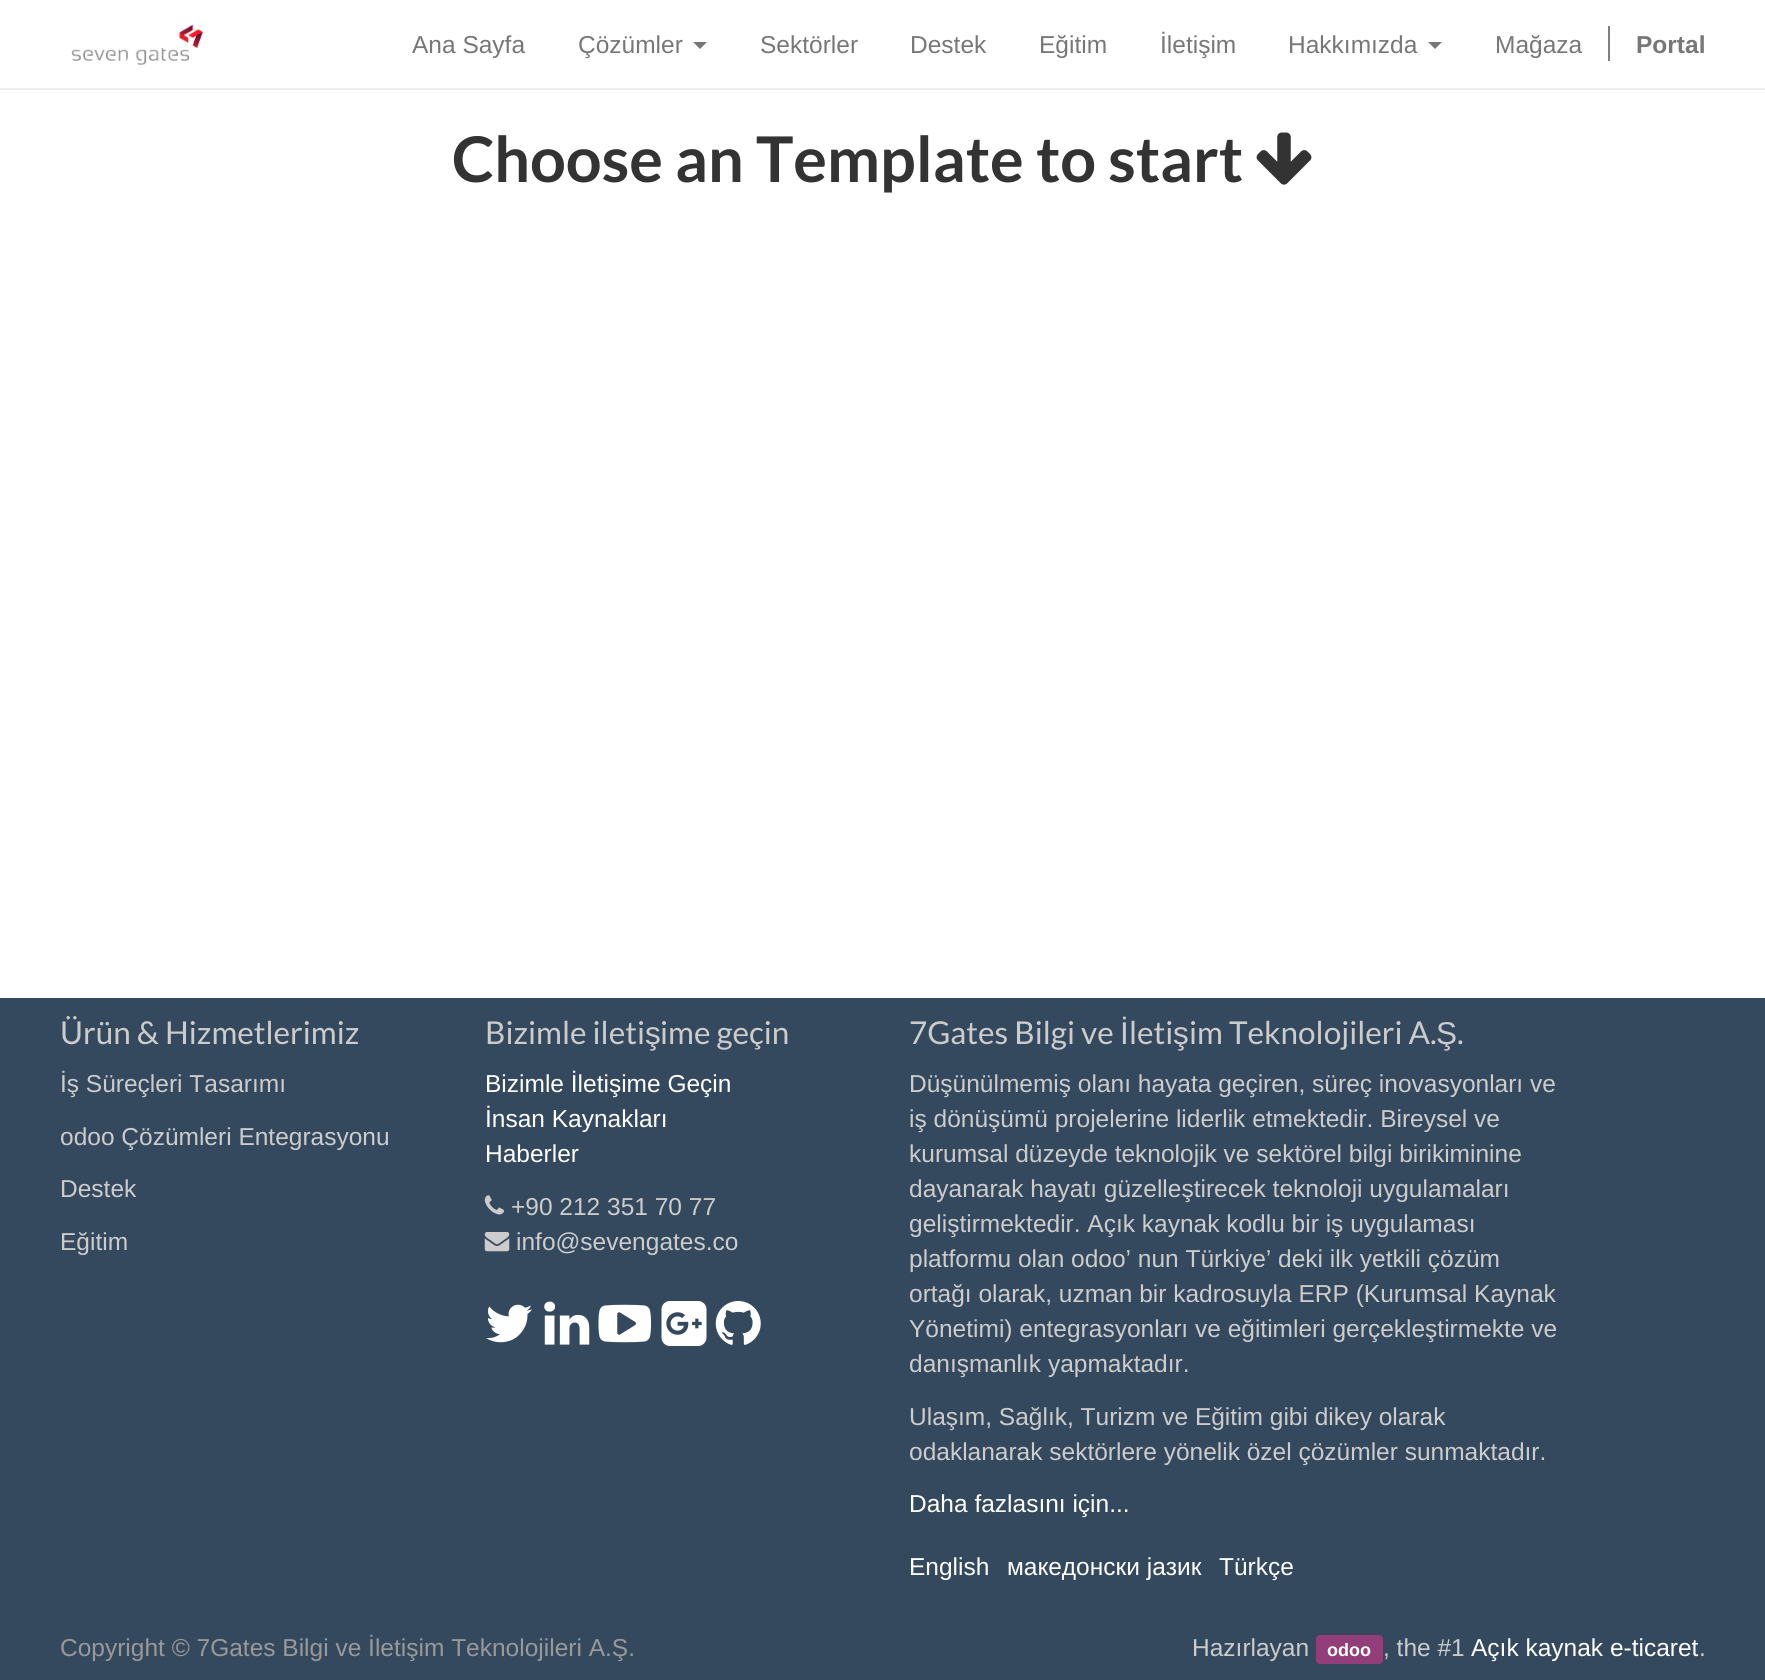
import math
import cairo

surface = cairo.ImageSurface(cairo.FORMAT_RGB24, 1765, 1680)
cr = cairo.Context(surface)
options = cairo.FontOptions()
options.set_hint_metrics(cairo.HINT_METRICS_OFF)
options.set_hint_style(cairo.HINT_STYLE_NONE)
cr.set_font_options(options)
cr.set_miter_limit(4)


def rgb(code):
    cr.set_source_rgb(*(v / 255 for v in bytes.fromhex(code[-6:])))


def rrect(x, y, w, h, r):
    cr.new_sub_path()
    for i, (u, v) in enumerate([(x + w - r, y + h - r), (x + r, y + h - r), (x + r, y + r), (x + w - r, y + r)]):
        cr.arc(u, v, r, i * math.pi / 2, (i + 1) * math.pi / 2)
    cr.close_path()


def image(path, x, y, w, h):
    cr.save()
    cr.set_source_surface(cairo.ImageSurface.create_from_png(path), x, y)
    cr.rectangle(x, y, w, h)
    cr.fill()
    cr.restore()


rgb("#ffffff")
cr.paint()
rgb("#eeeeee")
cr.rectangle(0, 88, 1765, 2)
cr.fill()
image("img/1.png", 71, 24, 133, 41)
rgb("#777777")
cr.new_path()
cr.move_to(693, 42)
cr.line_to(707, 42)
cr.line_to(700, 49)
cr.close_path()
cr.fill()
cr.new_path()
cr.move_to(1428, 42)
cr.line_to(1442, 42)
cr.line_to(1435, 49)
cr.close_path()
cr.fill()
rgb("#808080")
cr.rectangle(1608, 26, 2, 35)
cr.fill()
image("img/2.png", 1256, 132, 56, 53)
rgb("#34495e")
cr.rectangle(0, 998, 1765, 682)
cr.fill()
image("img/3.png", 484, 1195, 20, 20)
image("img/4.png", 484, 1232, 26, 20)
image("img/5.png", 486, 1304, 46, 39)
image("img/6.png", 544, 1301, 46, 44)
image("img/7.png", 598, 1304, 53, 39)
image("img/8.png", 661, 1301, 46, 45)
image("img/9.png", 715, 1301, 46, 44)
rgb("#913e7a")
rrect(1316, 1635, 67, 29, 4)
cr.fill()
cr.select_font_face("Liberation Sans")
cr.set_font_size(24.5)
rgb("#777777")
for x, y, s in [
    (412, 53, "Ana Sayfa"),
    (578, 53, "Çözümler"),
    (760, 53, "Sektörler"),
    (910, 53, "Destek"),
    (1039, 53, "Eğitim"),
    (1160, 53, "İletişim"),
    (1288, 53, "Hakkımızda"),
    (1495, 53, "Mağaza"),
]:
    cr.move_to(x, y)
    cr.show_text(s)
cr.select_font_face("Liberation Sans", cairo.FONT_SLANT_NORMAL, cairo.FONT_WEIGHT_BOLD)
cr.move_to(1636, 53)
cr.show_text("Portal")
cr.select_font_face("Lato", cairo.FONT_SLANT_NORMAL, cairo.FONT_WEIGHT_BOLD)
cr.set_font_size(63)
rgb("#333333")
cr.move_to(452, 182)
cr.show_text("Choose an Template to start")
cr.select_font_face("Lato")
cr.set_font_size(31.5)
rgb("#cccccc")
cr.move_to(60, 1044)
cr.show_text("Ürün & Hizmetlerimiz")
cr.select_font_face("Liberation Sans")
cr.set_font_size(24.5)
for x, y, s in [
    (60, 1092, "İş Süreçleri Tasarımı"),
    (60, 1145, "odoo Çözümleri Entegrasyonu"),
    (60, 1197, "Destek"),
    (60, 1250, "Eğitim"),
]:
    cr.move_to(x, y)
    cr.show_text(s)
cr.select_font_face("Lato")
cr.set_font_size(31.5)
cr.move_to(485, 1044)
cr.show_text("Bizimle ileti")
cr.select_font_face("Liberation Sans")
cr.move_to(645, 1044)
cr.show_text("ş")
cr.select_font_face("Lato")
cr.move_to(660, 1044)
cr.show_text("ime geçin")
cr.select_font_face("Liberation Sans")
cr.set_font_size(24.5)
rgb("#ffffff")
for x, y, s in [
    (485, 1092, "Bizimle İletişime Geçin"),
    (485, 1127, "İnsan Kaynakları"),
    (485, 1162, "Haberler"),
]:
    cr.move_to(x, y)
    cr.show_text(s)
rgb("#cccccc")
cr.move_to(511, 1215)
cr.show_text("+90 212 351 70 77")
cr.move_to(516, 1250)
cr.show_text("info@sevengates.co")
cr.select_font_face("Lato")
cr.set_font_size(31.5)
cr.move_to(909, 1044)
cr.show_text("7Gates Bilgi ve")
cr.select_font_face("Liberation Sans")
cr.move_to(1120, 1044)
cr.show_text("İ")
cr.select_font_face("Lato")
cr.move_to(1129, 1044)
cr.show_text("leti")
cr.select_font_face("Liberation Sans")
cr.move_to(1173, 1044)
cr.show_text("ş")
cr.select_font_face("Lato")
cr.move_to(1189, 1044)
cr.show_text("im Teknolojileri A.")
cr.select_font_face("Liberation Sans")
cr.move_to(1436, 1044)
cr.show_text("Ş")
cr.select_font_face("Lato")
cr.move_to(1457, 1044)
cr.show_text(".")
cr.select_font_face("Liberation Sans")
cr.set_font_size(24.5)
for x, y, s in [
    (909, 1092, "Düşünülmemiş olanı hayata geçiren, süreç inovasyonları ve"),
    (909, 1127, "iş dönüşümü projelerine liderlik etmektedir. Bireysel ve"),
    (909, 1162, "kurumsal düzeyde teknolojik ve sektörel bilgi birikiminine"),
    (909, 1197, "dayanarak hayatı güzelleştirecek teknoloji uygulamaları"),
    (909, 1232, "geliştirmektedir. Açık kaynak kodlu bir iş uygulaması"),
    (909, 1267, "platformu olan odoo’ nun Türkiye’ deki ilk yetkili çözüm"),
    (909, 1302, "ortağı olarak, uzman bir kadrosuyla ERP (Kurumsal Kaynak"),
    (909, 1337, "Yönetimi) entegrasyonları ve eğitimleri gerçekleştirmekte ve"),
    (909, 1372, "danışmanlık yapmaktadır."),
    (909, 1425, "Ulaşım, Sağlık, Turizm ve Eğitim gibi dikey olarak"),
    (909, 1460, "odaklanarak sektörlere yönelik özel çözümler sunmaktadır."),
]:
    cr.move_to(x, y)
    cr.show_text(s)
rgb("#ffffff")
for x, y, s in [
    (909, 1512, "Daha fazlasını için..."),
    (909, 1575, "English"),
    (1007, 1575, "македонски јазик"),
    (1219, 1575, "Türkçe"),
]:
    cr.move_to(x, y)
    cr.show_text(s)
rgb("#999999")
cr.move_to(60, 1656)
cr.show_text("Copyright © 7Gates Bilgi ve İletişim Teknolojileri A.Ş.")
rgb("#cccccc")
cr.move_to(1192, 1656)
cr.show_text("Hazırlayan")
cr.select_font_face("Liberation Sans", cairo.FONT_SLANT_NORMAL, cairo.FONT_WEIGHT_BOLD)
cr.set_font_size(18)
rgb("#ffffff")
cr.move_to(1327, 1656)
cr.show_text("odoo")
cr.select_font_face("Liberation Sans")
cr.set_font_size(24.5)
rgb("#cccccc")
cr.move_to(1383, 1656)
cr.show_text(", the #1")
rgb("#ffffff")
cr.move_to(1471, 1656)
cr.show_text("Açık kaynak e-ticaret")
rgb("#cccccc")
cr.move_to(1699, 1656)
cr.show_text(".")
surface.write_to_png("page.png")
